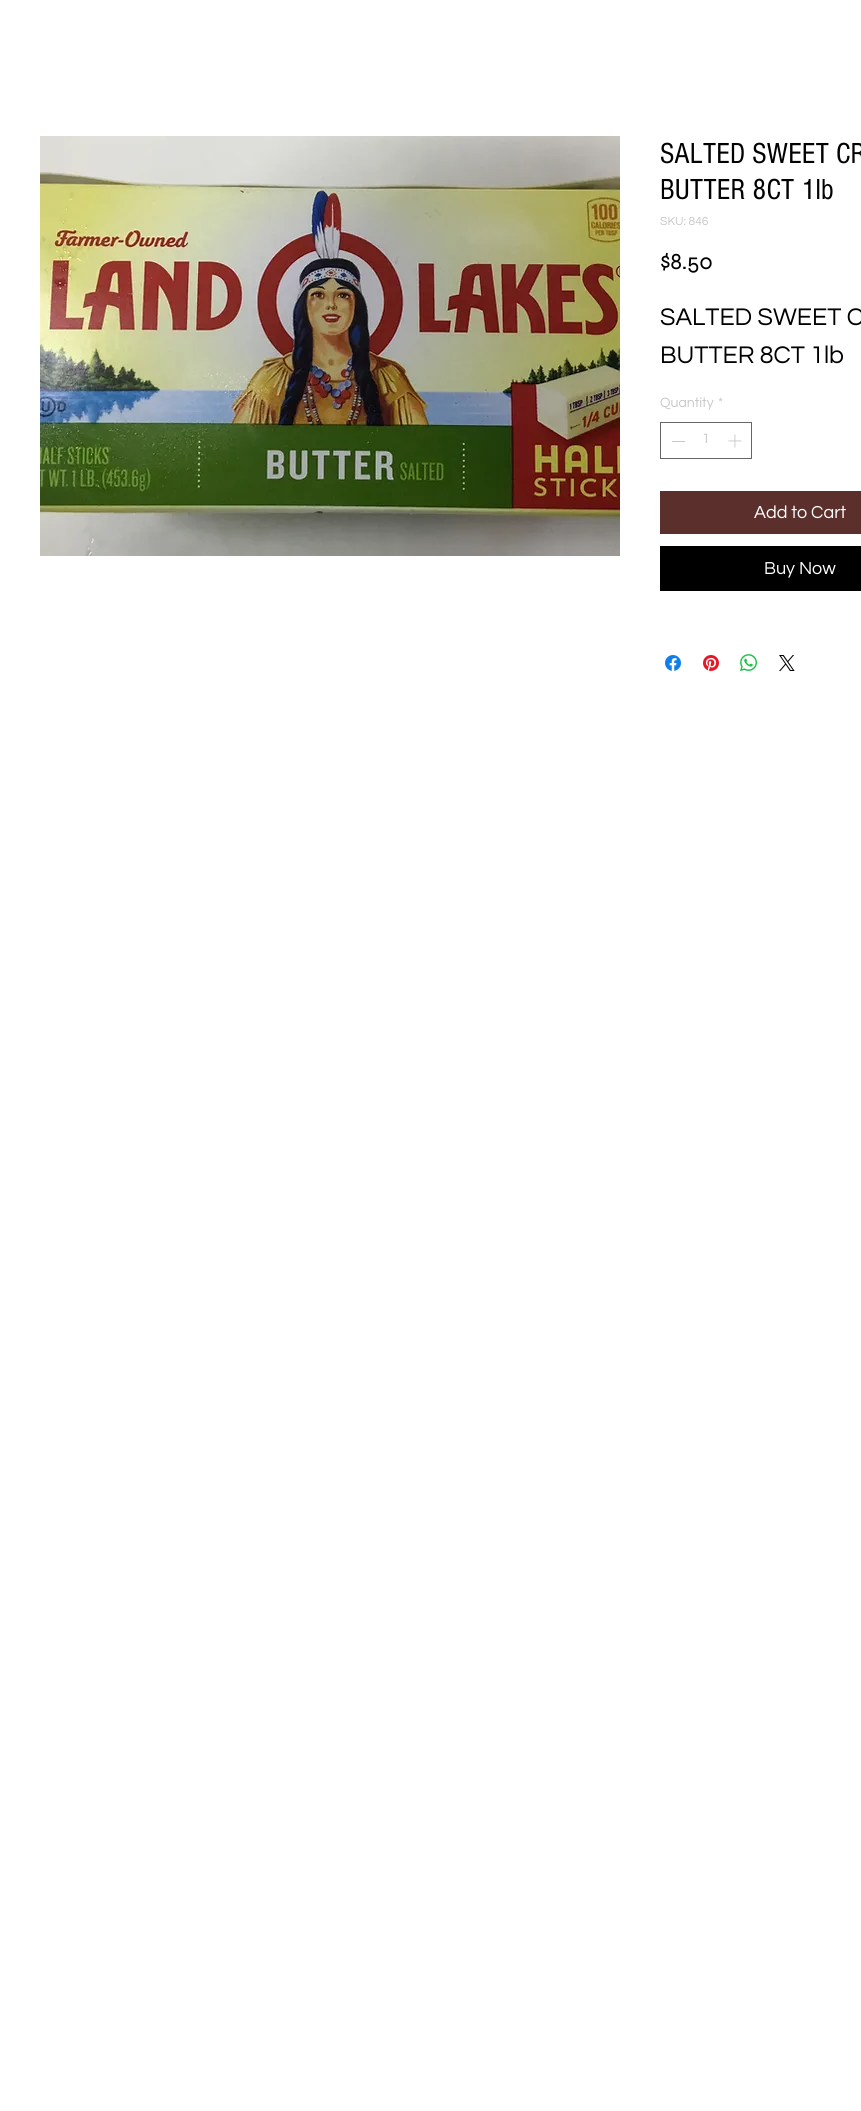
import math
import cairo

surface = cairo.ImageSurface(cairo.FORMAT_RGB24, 861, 2111)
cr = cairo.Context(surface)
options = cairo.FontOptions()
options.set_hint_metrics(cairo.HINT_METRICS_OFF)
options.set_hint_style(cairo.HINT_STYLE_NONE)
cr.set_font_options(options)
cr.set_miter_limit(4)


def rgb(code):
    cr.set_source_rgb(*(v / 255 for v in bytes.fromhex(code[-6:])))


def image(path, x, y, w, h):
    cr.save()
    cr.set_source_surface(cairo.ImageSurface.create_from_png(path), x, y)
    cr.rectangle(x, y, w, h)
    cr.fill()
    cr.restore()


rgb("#ffffff")
cr.paint()
image("img/1.png", 40, 136, 580, 420)
cr.rectangle(660.5, 422.5, 91, 36)
rgb("#666666")
cr.set_line_width(1)
cr.stroke()
rgb("#c7c7c7")
cr.rectangle(672, 441, 13, 1)
cr.fill()
image("img/2.png", 728, 434, 14, 14)
rgb("#5b2f2c")
cr.rectangle(660, 491, 201, 43)
cr.fill()
rgb("#000000")
cr.rectangle(660, 546, 201, 45)
cr.fill()
image("img/3.png", 665, 655, 16, 16)
image("img/4.png", 703, 655, 16, 16)
image("img/5.png", 740, 654, 17, 17)
image("img/6.png", 779, 655, 16, 16)
cr.select_font_face("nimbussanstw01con")
cr.set_font_size(30)
cr.move_to(660, 163)
cr.show_text("SALTED SWEET CR")
cr.move_to(660, 199)
cr.show_text("BUTTER 8CT 1lb")
cr.select_font_face("Questrial")
cr.set_font_size(12)
rgb("#c7c7c7")
cr.move_to(660, 225)
cr.show_text("SKU: 846")
cr.select_font_face("Syne")
cr.set_font_size(23)
rgb("#000000")
cr.move_to(660, 269)
cr.show_text("$8.50")
cr.select_font_face("Questrial")
cr.set_font_size(25)
cr.move_to(660, 325)
cr.show_text("SALTED SWEET C")
cr.move_to(660, 363)
cr.show_text("BUTTER 8CT 1lb")
cr.set_font_size(14)
rgb("#c7c7c7")
for x, y, s in [
    (660, 407, "Quantity"),
    (718, 407, "*"),
    (702, 443, "1"),
]:
    cr.move_to(x, y)
    cr.show_text(s)
cr.set_font_size(18)
rgb("#ffffff")
cr.move_to(754, 518)
cr.show_text("Add to Cart")
cr.move_to(764, 574)
cr.show_text("Buy Now")
surface.write_to_png("page.png")
